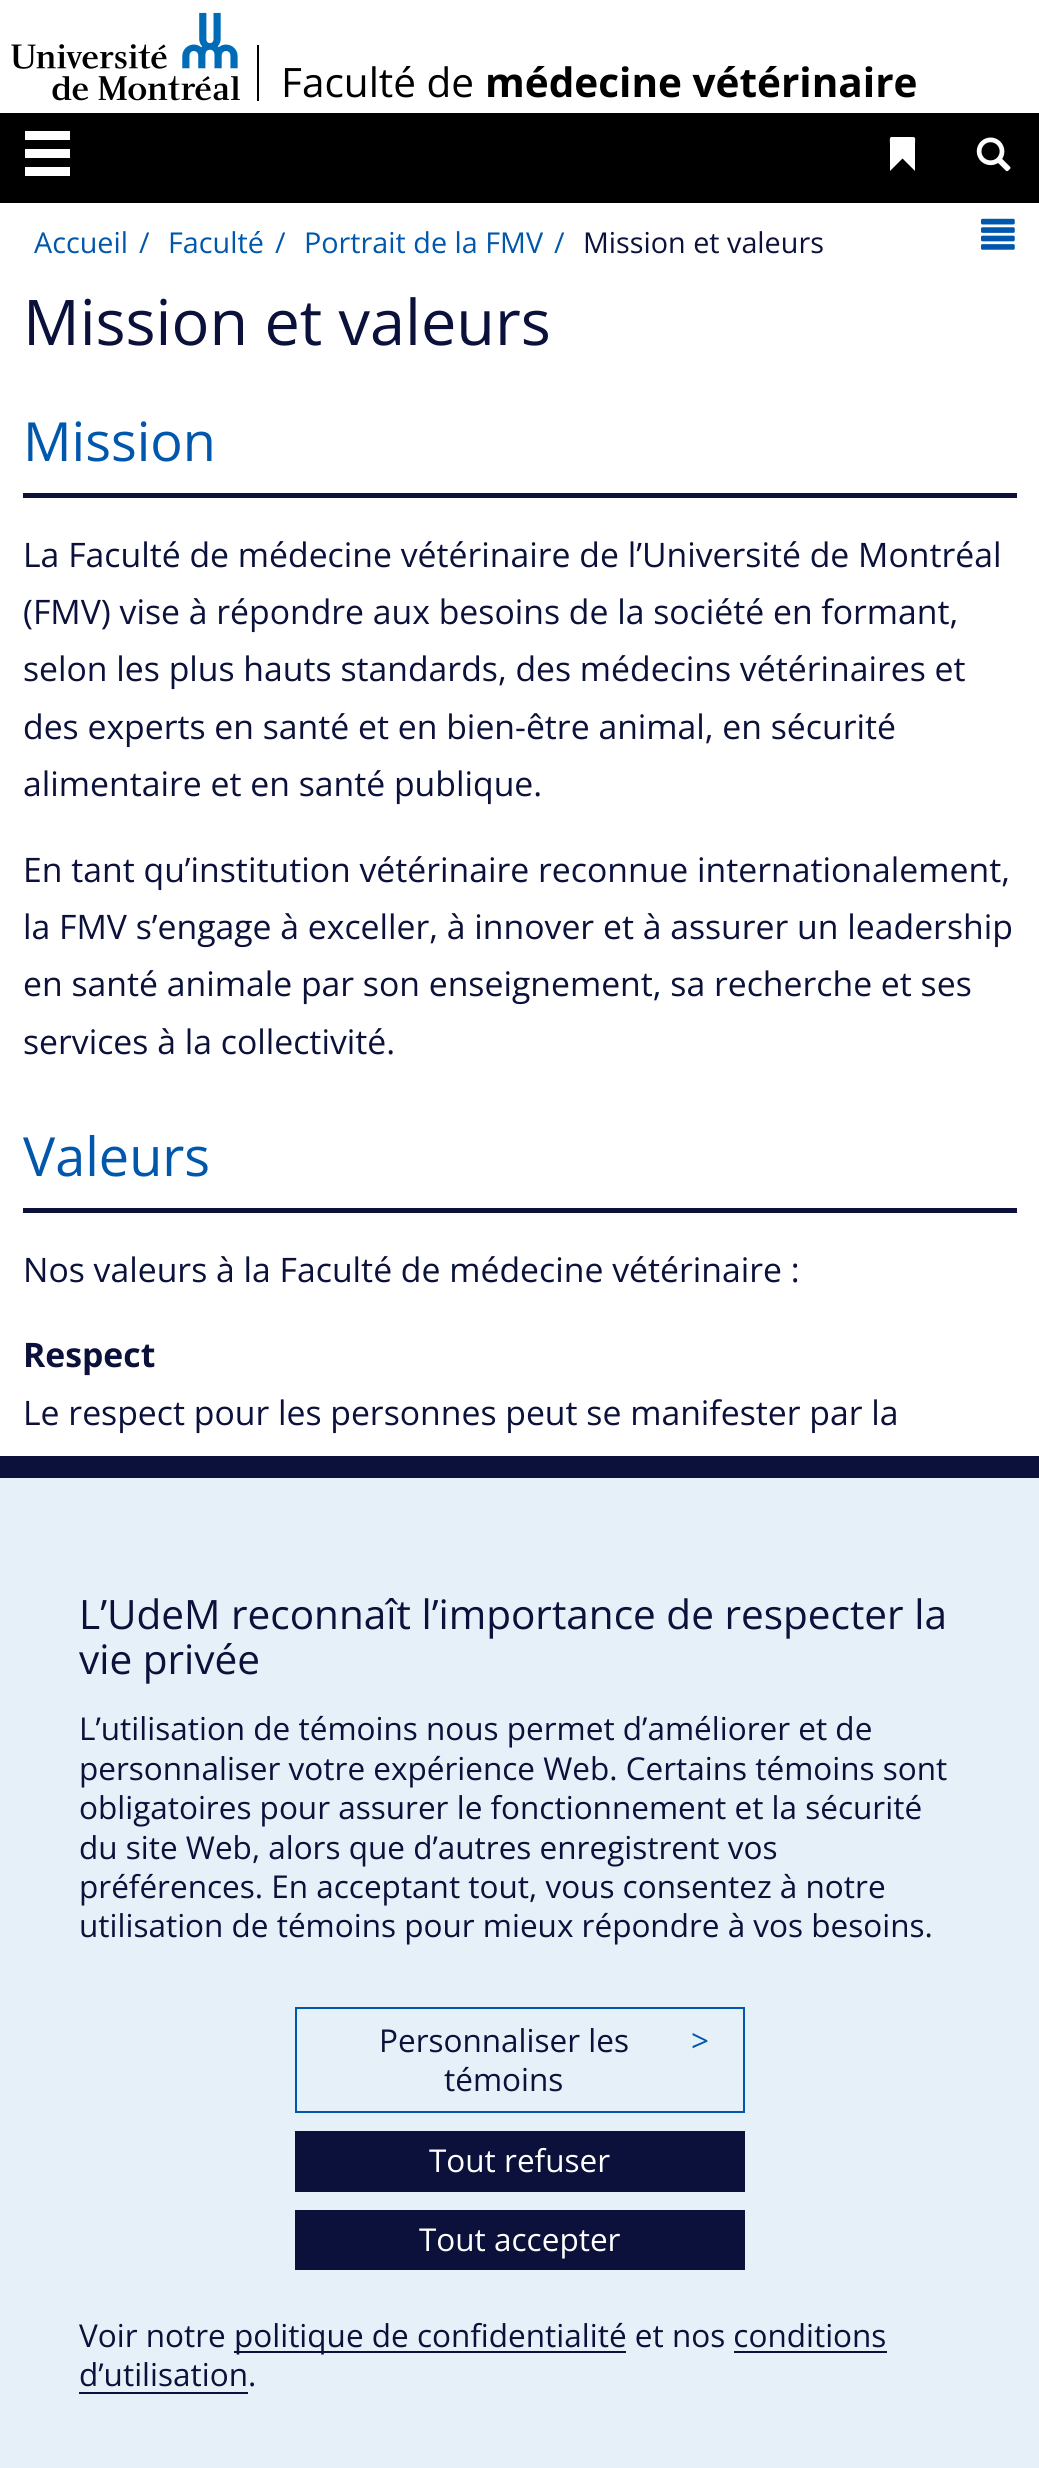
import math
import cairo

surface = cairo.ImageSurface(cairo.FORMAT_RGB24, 1039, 2468)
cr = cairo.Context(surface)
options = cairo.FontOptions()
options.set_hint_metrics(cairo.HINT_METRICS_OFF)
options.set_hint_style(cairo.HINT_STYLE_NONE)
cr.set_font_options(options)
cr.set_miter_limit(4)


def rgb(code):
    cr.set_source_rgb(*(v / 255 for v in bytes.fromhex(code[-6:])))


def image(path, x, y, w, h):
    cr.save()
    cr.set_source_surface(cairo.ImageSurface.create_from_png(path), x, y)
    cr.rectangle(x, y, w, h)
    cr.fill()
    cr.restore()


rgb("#ffffff")
cr.paint()
image("img/1.png", 11, 12, 230, 89)
for x, y, w, h, color in [
    (257, 45, 2, 56, "#000000"),
    (0, 113, 1039, 90, "#000000"),
    (25, 131, 45, 9, "#ffffff"),
    (25, 149, 45, 9, "#ffffff"),
    (25, 167, 45, 9, "#ffffff"),
]:
    rgb(color)
    cr.rectangle(x, y, w, h)
    cr.fill()
cr.new_path()
cr.move_to(891.5, 137)
cr.line_to(910, 137)
cr.curve_to(916.5, 137, 915, 137, 915, 144)
cr.line_to(915, 171)
cr.line_to(902.5, 158.5)
cr.line_to(890, 171)
cr.line_to(890, 144)
cr.curve_to(890, 141.5, 889, 137, 891.5, 137)
cr.close_path()
cr.fill()
image("img/2.png", 976, 137, 35, 35)
image("img/3.png", 981, 218, 34, 32)
for x, y, w, h, color in [
    (23, 493, 994, 5, "#0b113a"),
    (23, 1208, 994, 5, "#0b113a"),
    (0, 1478, 1039, 990, "#e5f0f8"),
    (0, 1456, 1039, 22, "#0b113a"),
]:
    rgb(color)
    cr.rectangle(x, y, w, h)
    cr.fill()
cr.rectangle(296, 2008, 448, 104)
rgb("#0057ac")
cr.stroke()
for x, y, w, h, color in [
    (295, 2131, 450, 61, "#0b113a"),
    (295, 2210, 450, 60, "#0b113a"),
    (234, 2351, 392, 2, "#0b113a"),
    (734, 2351, 153, 2, "#0b113a"),
    (79, 2392, 169, 2, "#0b113a"),
]:
    rgb(color)
    cr.rectangle(x, y, w, h)
    cr.fill()
cr.select_font_face("Open Sans")
cr.set_font_size(40.5)
rgb("#000000")
cr.move_to(281, 97)
cr.show_text("Faculté de")
cr.select_font_face("Open Sans", cairo.FONT_SLANT_NORMAL, cairo.FONT_WEIGHT_BOLD)
cr.move_to(485, 97)
cr.show_text("médecine vétérinaire")
cr.select_font_face("Open Sans")
cr.set_font_size(28.75)
rgb("#0057ac")
for x, y, s in [
    (34, 253, "Accueil"),
    (139, 253, "/"),
    (168, 253, "Faculté"),
    (275, 253, "/"),
    (304, 253, "Portrait de la FMV"),
    (554, 253, "/"),
]:
    cr.move_to(x, y)
    cr.show_text(s)
rgb("#0b113a")
cr.move_to(583, 253)
cr.show_text("Mission et valeurs")
cr.set_font_size(63)
cr.move_to(23, 345)
cr.show_text("Mission et valeurs")
cr.set_font_size(54)
rgb("#0057ac")
cr.move_to(23, 461)
cr.show_text("Mission")
cr.set_font_size(33.75)
rgb("#0b113a")
for x, y, s in [
    (23, 567, "La Faculté de médecine vétérinaire de l’Université de Montréal"),
    (23, 624, "(FMV) vise à répondre aux besoins de la société en formant,"),
    (23, 681, "selon les plus hauts standards, des médecins vétérinaires et"),
    (23, 739, "des experts en santé et en bien-être animal, en sécurité"),
    (23, 796, "alimentaire et en santé publique."),
    (23, 882, "En tant qu’institution vétérinaire reconnue internationalement,"),
    (23, 939, "la FMV s’engage à exceller, à innover et à assurer un leadership"),
    (23, 996, "en santé animale par son enseignement, sa recherche et ses"),
    (23, 1054, "services à la collectivité."),
]:
    cr.move_to(x, y)
    cr.show_text(s)
cr.set_font_size(54)
rgb("#0057ac")
cr.move_to(23, 1176)
cr.show_text("Valeurs")
cr.set_font_size(33.75)
rgb("#0b113a")
cr.move_to(23, 1282)
cr.show_text("Nos valeurs à la Faculté de médecine vétérinaire :")
cr.select_font_face("Open Sans", cairo.FONT_SLANT_NORMAL, cairo.FONT_WEIGHT_BOLD)
cr.move_to(23, 1367)
cr.show_text("Respect")
cr.select_font_face("Open Sans")
cr.move_to(23, 1425)
cr.show_text("Le respect pour les personnes peut se manifester par la")
cr.set_font_size(40.5)
cr.move_to(79, 1629)
cr.show_text("L’UdeM reconnaît l’importance de respecter la")
cr.move_to(79, 1674)
cr.show_text("vie privée")
cr.set_font_size(31.5)
for x, y, s in [
    (79, 1740, "L’utilisation de témoins nous permet d’améliorer et de"),
    (79, 1780, "personnaliser votre expérience Web. Certains témoins sont"),
    (79, 1819, "obligatoires pour assurer le fonctionnement et la sécurité"),
    (79, 1859, "du site Web, alors que d’autres enregistrent vos"),
    (79, 1898, "préférences. En acceptant tout, vous consentez à notre"),
    (79, 1937, "utilisation de témoins pour mieux répondre à vos besoins."),
    (379, 2052, "Personnaliser les"),
]:
    cr.move_to(x, y)
    cr.show_text(s)
rgb("#0057ac")
cr.move_to(691, 2052)
cr.show_text(">")
rgb("#0b113a")
cr.move_to(444, 2091)
cr.show_text("témoins")
rgb("#ffffff")
cr.move_to(429, 2172)
cr.show_text("Tout refuser")
cr.move_to(419, 2251)
cr.show_text("Tout accepter")
rgb("#0b113a")
for x, y, s in [
    (79, 2347, "Voir notre"),
    (234, 2347, "politique de confidentialité et nos conditions"),
    (79, 2386, "d’utilisation."),
]:
    cr.move_to(x, y)
    cr.show_text(s)
surface.write_to_png("page.png")
